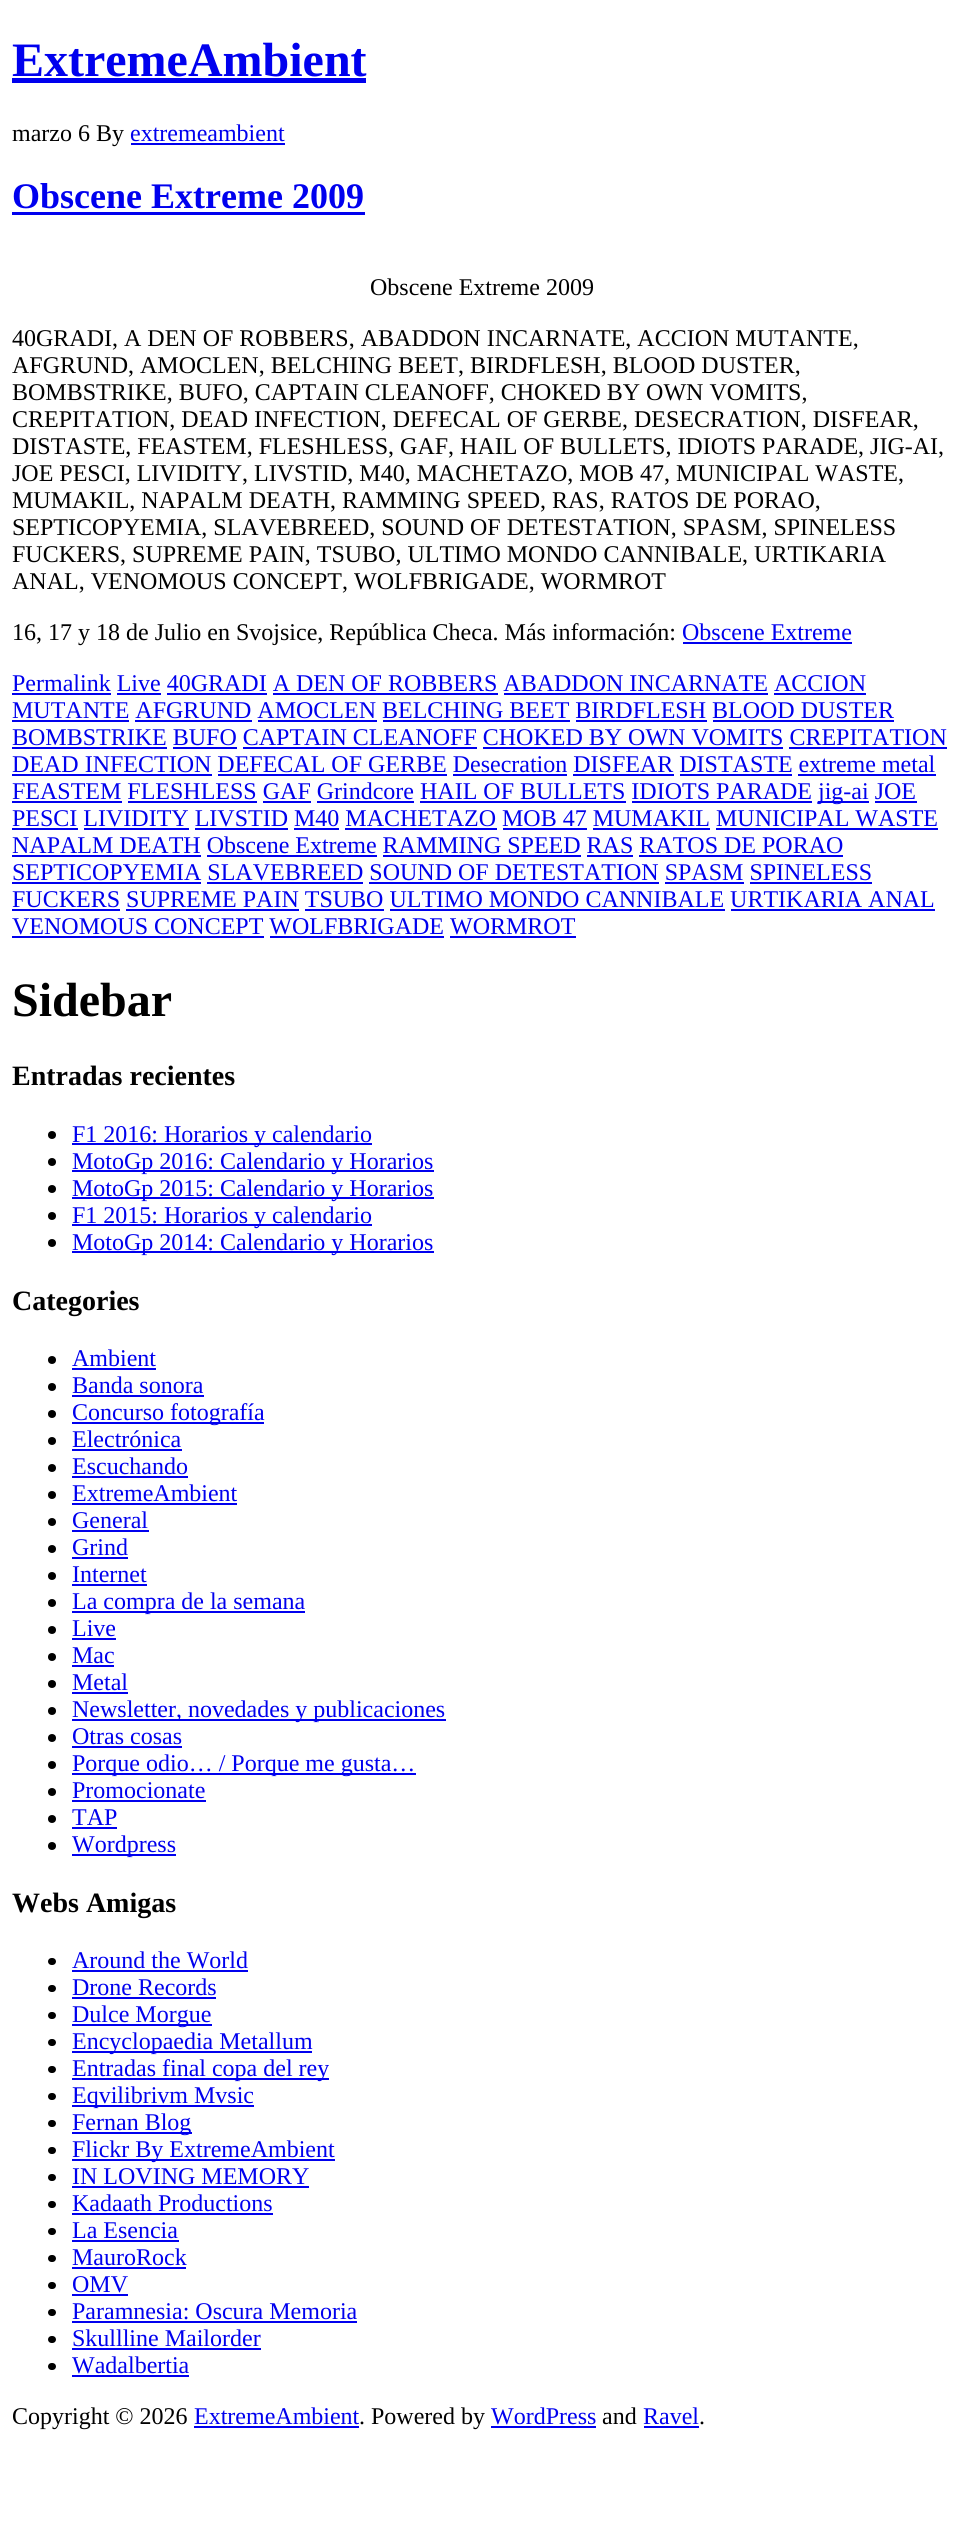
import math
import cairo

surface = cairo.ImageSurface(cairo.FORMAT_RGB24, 964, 2539)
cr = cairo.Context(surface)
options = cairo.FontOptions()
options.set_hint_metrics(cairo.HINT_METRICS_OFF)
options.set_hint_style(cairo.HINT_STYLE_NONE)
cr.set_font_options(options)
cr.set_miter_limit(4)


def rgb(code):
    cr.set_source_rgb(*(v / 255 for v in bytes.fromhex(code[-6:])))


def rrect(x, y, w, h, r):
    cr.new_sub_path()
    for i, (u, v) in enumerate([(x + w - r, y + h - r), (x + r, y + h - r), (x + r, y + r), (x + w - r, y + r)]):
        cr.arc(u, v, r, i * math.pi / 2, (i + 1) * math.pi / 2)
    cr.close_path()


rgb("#ffffff")
cr.paint()
for x, y, w, h, color in [
    (12, 78, 354, 5, "#0000ee"),
    (131, 143, 154, 2, "#0000ee"),
    (12, 212, 353, 3, "#0000ee"),
    (683, 642, 169, 2, "#0000ee"),
    (12, 693, 99, 2, "#0000ee"),
    (117, 693, 44, 2, "#0000ee"),
    (167, 693, 100, 2, "#0000ee"),
    (273, 693, 225, 2, "#0000ee"),
    (504, 693, 264, 2, "#0000ee"),
    (774, 693, 92, 2, "#0000ee"),
    (12, 720, 117, 2, "#0000ee"),
    (135, 720, 117, 2, "#0000ee"),
    (258, 720, 119, 2, "#0000ee"),
    (383, 720, 187, 2, "#0000ee"),
    (576, 720, 131, 2, "#0000ee"),
    (713, 720, 181, 2, "#0000ee"),
    (12, 747, 155, 2, "#0000ee"),
    (173, 747, 64, 2, "#0000ee"),
    (243, 747, 234, 2, "#0000ee"),
    (483, 747, 300, 2, "#0000ee"),
    (789, 747, 158, 2, "#0000ee"),
    (12, 774, 200, 2, "#0000ee"),
    (218, 774, 229, 2, "#0000ee"),
    (453, 774, 114, 2, "#0000ee"),
    (573, 774, 101, 2, "#0000ee"),
    (680, 774, 112, 2, "#0000ee"),
    (798, 774, 138, 2, "#0000ee"),
    (12, 801, 110, 2, "#0000ee"),
    (128, 801, 129, 2, "#0000ee"),
    (263, 801, 48, 2, "#0000ee"),
    (317, 801, 97, 2, "#0000ee"),
    (420, 801, 206, 2, "#0000ee"),
    (632, 801, 180, 2, "#0000ee"),
    (818, 801, 51, 2, "#0000ee"),
    (875, 801, 42, 2, "#0000ee"),
    (12, 828, 66, 2, "#0000ee"),
    (84, 828, 105, 2, "#0000ee"),
    (195, 828, 93, 2, "#0000ee"),
    (294, 828, 45, 2, "#0000ee"),
    (345, 828, 152, 2, "#0000ee"),
    (503, 828, 84, 2, "#0000ee"),
    (593, 828, 117, 2, "#0000ee"),
    (716, 828, 222, 2, "#0000ee"),
    (12, 855, 189, 2, "#0000ee"),
    (207, 855, 170, 2, "#0000ee"),
    (383, 855, 198, 2, "#0000ee"),
    (587, 855, 46, 2, "#0000ee"),
    (639, 855, 204, 2, "#0000ee"),
    (12, 882, 189, 2, "#0000ee"),
    (207, 882, 156, 2, "#0000ee"),
    (369, 882, 290, 2, "#0000ee"),
    (665, 882, 79, 2, "#0000ee"),
    (750, 882, 122, 2, "#0000ee"),
    (12, 909, 108, 2, "#0000ee"),
    (126, 909, 173, 2, "#0000ee"),
    (305, 909, 79, 2, "#0000ee"),
    (390, 909, 335, 2, "#0000ee"),
    (731, 909, 204, 2, "#0000ee"),
    (12, 936, 252, 2, "#0000ee"),
    (270, 936, 174, 2, "#0000ee"),
    (450, 936, 126, 2, "#0000ee"),
]:
    rgb(color)
    cr.rectangle(x, y, w, h)
    cr.fill()
rgb("#000000")
cr.arc(52, 1135, 4, 0, 2 * math.pi)
cr.fill()
rgb("#0000ee")
cr.rectangle(72, 1143, 300, 2)
cr.fill()
rgb("#000000")
cr.arc(52, 1162, 4, 0, 2 * math.pi)
cr.fill()
rgb("#0000ee")
cr.rectangle(72, 1170, 362, 2)
cr.fill()
rgb("#000000")
cr.arc(52, 1189, 4, 0, 2 * math.pi)
cr.fill()
rgb("#0000ee")
cr.rectangle(72, 1197, 362, 2)
cr.fill()
rgb("#000000")
cr.arc(52, 1216, 4, 0, 2 * math.pi)
cr.fill()
rgb("#0000ee")
cr.rectangle(72, 1224, 300, 2)
cr.fill()
rgb("#000000")
cr.arc(52, 1243, 4, 0, 2 * math.pi)
cr.fill()
rgb("#0000ee")
cr.rectangle(72, 1251, 362, 2)
cr.fill()
rgb("#000000")
cr.arc(52, 1360, 4, 0, 2 * math.pi)
cr.fill()
rgb("#0000ee")
cr.rectangle(72, 1368, 84, 2)
cr.fill()
rgb("#000000")
cr.arc(52, 1387, 4, 0, 2 * math.pi)
cr.fill()
rgb("#0000ee")
cr.rectangle(72, 1395, 132, 2)
cr.fill()
rgb("#000000")
cr.arc(52, 1414, 4, 0, 2 * math.pi)
cr.fill()
rgb("#0000ee")
cr.rectangle(72, 1422, 192, 2)
cr.fill()
rgb("#000000")
cr.arc(52, 1441, 4, 0, 2 * math.pi)
cr.fill()
rgb("#0000ee")
cr.rectangle(72, 1449, 110, 2)
cr.fill()
rgb("#000000")
cr.arc(52, 1468, 4, 0, 2 * math.pi)
cr.fill()
rgb("#0000ee")
cr.rectangle(72, 1476, 116, 2)
cr.fill()
rgb("#000000")
cr.arc(52, 1495, 4, 0, 2 * math.pi)
cr.fill()
rgb("#0000ee")
cr.rectangle(72, 1503, 165, 2)
cr.fill()
rgb("#000000")
cr.arc(52, 1522, 4, 0, 2 * math.pi)
cr.fill()
rgb("#0000ee")
cr.rectangle(72, 1530, 77, 2)
cr.fill()
rgb("#000000")
cr.arc(52, 1549, 4, 0, 2 * math.pi)
cr.fill()
rgb("#0000ee")
cr.rectangle(72, 1557, 56, 2)
cr.fill()
rgb("#000000")
cr.arc(52, 1576, 4, 0, 2 * math.pi)
cr.fill()
rgb("#0000ee")
cr.rectangle(72, 1584, 75, 2)
cr.fill()
rgb("#000000")
cr.arc(52, 1603, 4, 0, 2 * math.pi)
cr.fill()
rgb("#0000ee")
cr.rectangle(72, 1611, 233, 2)
cr.fill()
rgb("#000000")
cr.arc(52, 1630, 4, 0, 2 * math.pi)
cr.fill()
rgb("#0000ee")
cr.rectangle(72, 1638, 44, 2)
cr.fill()
rgb("#000000")
cr.arc(52, 1657, 4, 0, 2 * math.pi)
cr.fill()
rgb("#0000ee")
cr.rectangle(72, 1665, 42, 2)
cr.fill()
rgb("#000000")
cr.arc(52, 1684, 4, 0, 2 * math.pi)
cr.fill()
rgb("#0000ee")
cr.rectangle(72, 1692, 56, 2)
cr.fill()
rgb("#000000")
cr.arc(52, 1711, 4, 0, 2 * math.pi)
cr.fill()
rgb("#0000ee")
cr.rectangle(72, 1719, 374, 2)
cr.fill()
rgb("#000000")
cr.arc(52, 1738, 4, 0, 2 * math.pi)
cr.fill()
rgb("#0000ee")
cr.rectangle(72, 1746, 110, 2)
cr.fill()
rgb("#000000")
cr.arc(52, 1765, 4, 0, 2 * math.pi)
cr.fill()
rgb("#0000ee")
cr.rectangle(72, 1773, 344, 2)
cr.fill()
rgb("#000000")
cr.arc(52, 1792, 4, 0, 2 * math.pi)
cr.fill()
rgb("#0000ee")
cr.rectangle(72, 1800, 134, 2)
cr.fill()
rgb("#000000")
cr.arc(52, 1819, 4, 0, 2 * math.pi)
cr.fill()
rgb("#0000ee")
cr.rectangle(72, 1827, 45, 2)
cr.fill()
rgb("#000000")
cr.arc(52, 1846, 4, 0, 2 * math.pi)
cr.fill()
rgb("#0000ee")
cr.rectangle(72, 1854, 104, 2)
cr.fill()
rgb("#000000")
rrect(48, 1958, 8, 7, 3.5)
cr.fill()
rgb("#0000ee")
cr.rectangle(72, 1970, 176, 2)
cr.fill()
rgb("#000000")
rrect(48, 1985, 8, 7, 3.5)
cr.fill()
rgb("#0000ee")
cr.rectangle(72, 1997, 144, 2)
cr.fill()
rgb("#000000")
rrect(48, 2012, 8, 7, 3.5)
cr.fill()
rgb("#0000ee")
cr.rectangle(72, 2024, 140, 2)
cr.fill()
rgb("#000000")
rrect(48, 2039, 8, 7, 3.5)
cr.fill()
rgb("#0000ee")
cr.rectangle(72, 2051, 240, 2)
cr.fill()
rgb("#000000")
rrect(48, 2066, 8, 7, 3.5)
cr.fill()
rgb("#0000ee")
cr.rectangle(72, 2078, 257, 2)
cr.fill()
rgb("#000000")
rrect(48, 2093, 8, 7, 3.5)
cr.fill()
rgb("#0000ee")
cr.rectangle(72, 2105, 182, 2)
cr.fill()
rgb("#000000")
rrect(48, 2120, 8, 7, 3.5)
cr.fill()
rgb("#0000ee")
cr.rectangle(72, 2132, 120, 2)
cr.fill()
rgb("#000000")
rrect(48, 2147, 8, 7, 3.5)
cr.fill()
rgb("#0000ee")
cr.rectangle(72, 2159, 263, 2)
cr.fill()
rgb("#000000")
rrect(48, 2174, 8, 7, 3.5)
cr.fill()
rgb("#0000ee")
cr.rectangle(72, 2186, 237, 2)
cr.fill()
rgb("#000000")
rrect(48, 2201, 8, 7, 3.5)
cr.fill()
rgb("#0000ee")
cr.rectangle(72, 2213, 201, 2)
cr.fill()
rgb("#000000")
rrect(48, 2228, 8, 7, 3.5)
cr.fill()
rgb("#0000ee")
cr.rectangle(72, 2240, 107, 2)
cr.fill()
rgb("#000000")
rrect(48, 2255, 8, 7, 3.5)
cr.fill()
rgb("#0000ee")
cr.rectangle(72, 2267, 114, 2)
cr.fill()
rgb("#000000")
rrect(48, 2282, 8, 7, 3.5)
cr.fill()
rgb("#0000ee")
cr.rectangle(72, 2294, 56, 2)
cr.fill()
rgb("#000000")
rrect(48, 2309, 8, 7, 3.5)
cr.fill()
rgb("#0000ee")
cr.rectangle(72, 2321, 285, 2)
cr.fill()
rgb("#000000")
rrect(48, 2336, 8, 7, 3.5)
cr.fill()
rgb("#0000ee")
cr.rectangle(72, 2348, 189, 2)
cr.fill()
rgb("#000000")
rrect(48, 2363, 8, 7, 3.5)
cr.fill()
for x, y, w, h, color in [
    (72, 2375, 117, 2, "#0000ee"),
    (194, 2426, 165, 2, "#0000ee"),
    (491, 2426, 105, 2, "#0000ee"),
    (644, 2426, 55, 2, "#0000ee"),
]:
    rgb(color)
    cr.rectangle(x, y, w, h)
    cr.fill()
cr.select_font_face("Liberation Serif", cairo.FONT_SLANT_NORMAL, cairo.FONT_WEIGHT_BOLD)
cr.set_font_size(48)
cr.move_to(12, 76)
cr.show_text("ExtremeAmbient")
cr.select_font_face("Liberation Serif")
cr.set_font_size(24)
rgb("#000000")
cr.move_to(12, 141)
cr.show_text("marzo 6 By")
rgb("#0000ee")
cr.move_to(130, 141)
cr.show_text("extremeambient")
cr.select_font_face("Liberation Serif", cairo.FONT_SLANT_NORMAL, cairo.FONT_WEIGHT_BOLD)
cr.set_font_size(36)
cr.move_to(12, 208)
cr.show_text("Obscene Extreme 2009")
cr.select_font_face("Liberation Serif")
cr.set_font_size(24)
rgb("#000000")
for x, y, s in [
    (370, 295, "Obscene Extreme 2009"),
    (12, 346, "40GRADI, A DEN OF ROBBERS, ABADDON INCARNATE, ACCION MUTANTE,"),
    (12, 373, "AFGRUND, AMOCLEN, BELCHING BEET, BIRDFLESH, BLOOD DUSTER,"),
    (12, 400, "BOMBSTRIKE, BUFO, CAPTAIN CLEANOFF, CHOKED BY OWN VOMITS,"),
    (12, 427, "CREPITATION, DEAD INFECTION, DEFECAL OF GERBE, DESECRATION, DISFEAR,"),
    (12, 454, "DISTASTE, FEASTEM, FLESHLESS, GAF, HAIL OF BULLETS, IDIOTS PARADE, JIG-AI,"),
    (12, 481, "JOE PESCI, LIVIDITY, LIVSTID, M40, MACHETAZO, MOB 47, MUNICIPAL WASTE,"),
    (12, 508, "MUMAKIL, NAPALM DEATH, RAMMING SPEED, RAS, RATOS DE PORAO,"),
    (12, 535, "SEPTICOPYEMIA, SLAVEBREED, SOUND OF DETESTATION, SPASM, SPINELESS"),
    (12, 562, "FUCKERS, SUPREME PAIN, TSUBO, ULTIMO MONDO CANNIBALE, URTIKARIA"),
    (12, 589, "ANAL, VENOMOUS CONCEPT, WOLFBRIGADE, WORMROT"),
    (12, 640, "16, 17 y 18 de Julio en Svojsice, República Checa. Más información:"),
]:
    cr.move_to(x, y)
    cr.show_text(s)
rgb("#0000ee")
for x, y, s in [
    (682, 640, "Obscene Extreme"),
    (12, 691, "Permalink Live 40GRADI A DEN OF ROBBERS ABADDON INCARNATE ACCION"),
    (12, 718, "MUTANTE AFGRUND AMOCLEN BELCHING BEET BIRDFLESH BLOOD DUSTER"),
    (12, 745, "BOMBSTRIKE BUFO CAPTAIN CLEANOFF CHOKED BY OWN VOMITS CREPITATION"),
    (12, 772, "DEAD INFECTION DEFECAL OF GERBE Desecration DISFEAR DISTASTE extreme metal"),
    (12, 799, "FEASTEM FLESHLESS GAF Grindcore HAIL OF BULLETS IDIOTS PARADE"),
    (818, 799, "jig-ai JOE"),
    (12, 826, "PESCI LIVIDITY LIVSTID M40 MACHETAZO MOB 47 MUMAKIL MUNICIPAL WASTE"),
    (12, 853, "NAPALM DEATH Obscene Extreme RAMMING SPEED RAS RATOS DE PORAO"),
    (12, 880, "SEPTICOPYEMIA SLAVEBREED SOUND OF DETESTATION SPASM SPINELESS"),
    (12, 907, "FUCKERS SUPREME PAIN TSUBO ULTIMO MONDO CANNIBALE URTIKARIA ANAL"),
    (12, 934, "VENOMOUS CONCEPT WOLFBRIGADE WORMROT"),
]:
    cr.move_to(x, y)
    cr.show_text(s)
cr.select_font_face("Liberation Serif", cairo.FONT_SLANT_NORMAL, cairo.FONT_WEIGHT_BOLD)
cr.set_font_size(48)
rgb("#000000")
cr.move_to(12, 1016)
cr.show_text("Sidebar")
cr.set_font_size(28)
cr.move_to(12, 1085)
cr.show_text("Entradas recientes")
cr.select_font_face("Liberation Serif")
cr.set_font_size(24)
rgb("#0000ee")
for x, y, s in [
    (72, 1142, "F1 2016: Horarios y calendario"),
    (72, 1169, "MotoGp 2016: Calendario y Horarios"),
    (72, 1196, "MotoGp 2015: Calendario y Horarios"),
    (72, 1223, "F1 2015: Horarios y calendario"),
    (72, 1250, "MotoGp 2014: Calendario y Horarios"),
]:
    cr.move_to(x, y)
    cr.show_text(s)
cr.select_font_face("Liberation Serif", cairo.FONT_SLANT_NORMAL, cairo.FONT_WEIGHT_BOLD)
cr.set_font_size(28)
rgb("#000000")
cr.move_to(12, 1310)
cr.show_text("Categories")
cr.select_font_face("Liberation Serif")
cr.set_font_size(24)
rgb("#0000ee")
for x, y, s in [
    (72, 1366, "Ambient"),
    (72, 1393, "Banda sonora"),
    (72, 1420, "Concurso fotografía"),
    (72, 1447, "Electrónica"),
    (72, 1474, "Escuchando"),
    (72, 1501, "ExtremeAmbient"),
    (72, 1528, "General"),
    (72, 1555, "Grind"),
    (72, 1582, "Internet"),
    (72, 1609, "La compra de la semana"),
    (72, 1636, "Live"),
    (72, 1663, "Mac"),
    (72, 1690, "Metal"),
    (72, 1717, "Newsletter, novedades y publicaciones"),
    (72, 1744, "Otras cosas"),
    (72, 1771, "Porque odio… / Porque me gusta…"),
    (72, 1798, "Promocionate"),
    (72, 1825, "TAP"),
    (72, 1852, "Wordpress"),
]:
    cr.move_to(x, y)
    cr.show_text(s)
cr.select_font_face("Liberation Serif", cairo.FONT_SLANT_NORMAL, cairo.FONT_WEIGHT_BOLD)
cr.set_font_size(28)
rgb("#000000")
cr.move_to(12, 1912)
cr.show_text("Webs Amigas")
cr.select_font_face("Liberation Serif")
cr.set_font_size(24)
rgb("#0000ee")
for x, y, s in [
    (72, 1968, "Around the World"),
    (72, 1995, "Drone Records"),
    (72, 2022, "Dulce Morgue"),
    (72, 2049, "Encyclopaedia Metallum"),
    (72, 2076, "Entradas final copa del rey"),
    (72, 2103, "Eqvilibrivm Mvsic"),
    (72, 2130, "Fernan Blog"),
    (72, 2157, "Flickr By ExtremeAmbient"),
    (72, 2184, "IN LOVING MEMORY"),
    (72, 2211, "Kadaath Productions"),
    (72, 2238, "La Esencia"),
    (72, 2265, "MauroRock"),
    (72, 2292, "OMV"),
    (72, 2319, "Paramnesia: Oscura Memoria"),
    (72, 2346, "Skullline Mailorder"),
    (72, 2373, "Wadalbertia"),
]:
    cr.move_to(x, y)
    cr.show_text(s)
rgb("#000000")
cr.move_to(12, 2424)
cr.show_text("Copyright © 2026")
rgb("#0000ee")
cr.move_to(194, 2424)
cr.show_text("ExtremeAmbient")
rgb("#000000")
cr.move_to(359, 2424)
cr.show_text(". Powered by")
rgb("#0000ee")
cr.move_to(491, 2424)
cr.show_text("WordPress")
rgb("#000000")
cr.move_to(602, 2424)
cr.show_text("and")
rgb("#0000ee")
cr.move_to(643, 2424)
cr.show_text("Ravel")
rgb("#000000")
cr.move_to(699, 2424)
cr.show_text(".")
surface.write_to_png("page.png")
